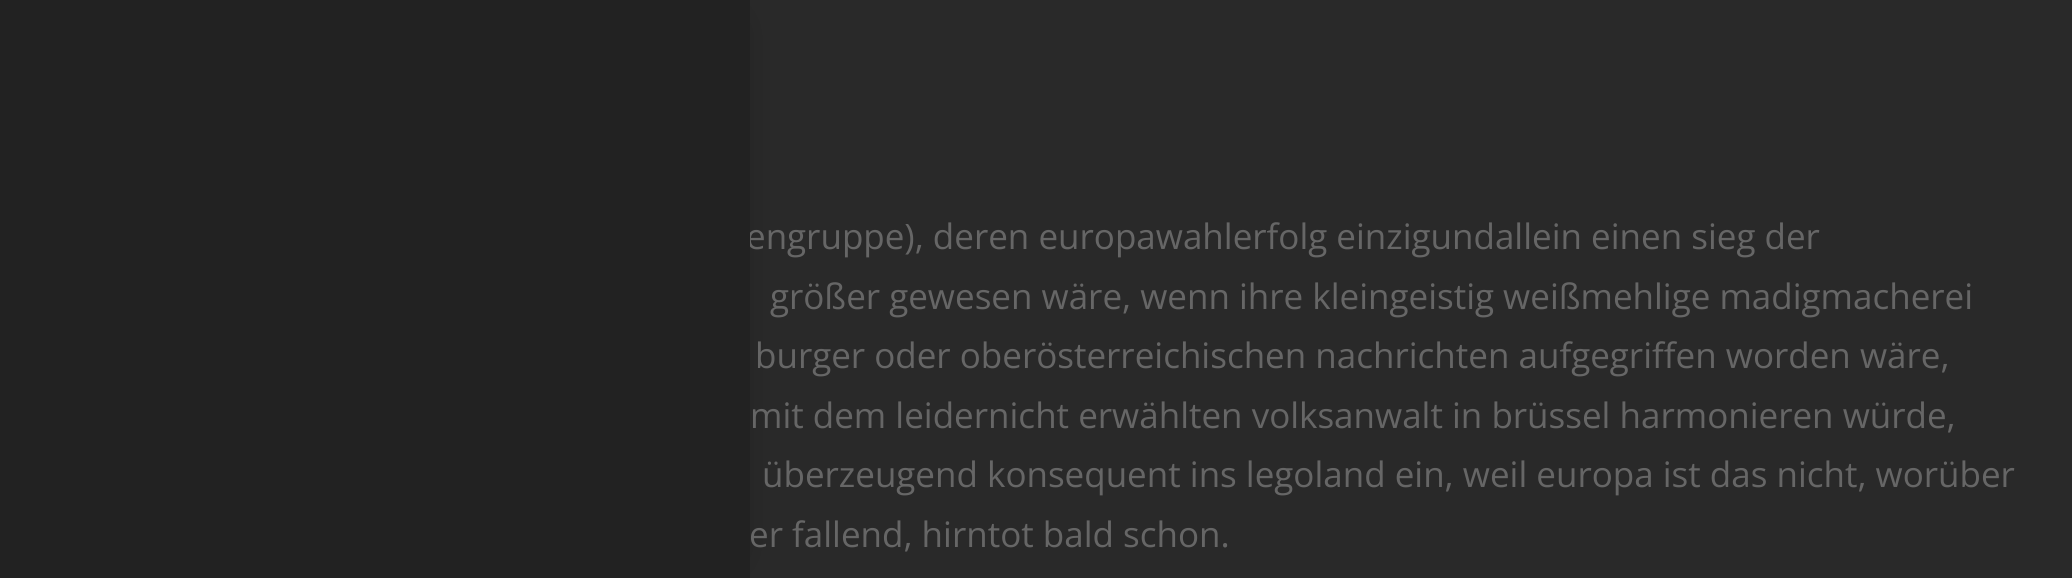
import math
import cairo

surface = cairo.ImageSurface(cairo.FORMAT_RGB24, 2072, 578)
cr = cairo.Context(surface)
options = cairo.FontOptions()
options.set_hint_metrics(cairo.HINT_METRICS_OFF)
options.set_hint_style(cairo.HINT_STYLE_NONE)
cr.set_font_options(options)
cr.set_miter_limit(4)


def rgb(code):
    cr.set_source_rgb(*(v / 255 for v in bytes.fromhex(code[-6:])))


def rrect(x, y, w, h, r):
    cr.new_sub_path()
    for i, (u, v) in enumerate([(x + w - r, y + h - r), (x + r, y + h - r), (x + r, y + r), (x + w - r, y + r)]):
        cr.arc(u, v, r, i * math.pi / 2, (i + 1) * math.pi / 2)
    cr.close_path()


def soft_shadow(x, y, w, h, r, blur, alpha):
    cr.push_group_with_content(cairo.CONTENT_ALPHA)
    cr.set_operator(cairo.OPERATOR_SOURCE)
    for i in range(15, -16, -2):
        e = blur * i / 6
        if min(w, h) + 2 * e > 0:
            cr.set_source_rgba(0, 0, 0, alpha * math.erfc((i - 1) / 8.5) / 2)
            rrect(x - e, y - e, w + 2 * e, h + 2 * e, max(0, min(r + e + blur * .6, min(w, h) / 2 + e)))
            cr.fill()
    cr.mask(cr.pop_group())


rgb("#292929")
cr.paint()
rgb("#000000")
soft_shadow(25, 25, 700, 530, 0, 25, 0.3)
cr.select_font_face("Open Sans")
cr.set_font_size(35)
rgb("#666666")
cr.move_to(746, 249)
cr.show_text("engruppe), deren europawahlerfolg einzigundallein einen sieg der")
rgb("#222222")
cr.rectangle(0, 0, 750, 578)
cr.fill()
rgb("#666666")
for x, y, s in [
    (770, 309, "größer gewesen wäre, wenn ihre kleingeistig weißmehlige madigmacherei"),
    (755, 368, "burger oder oberösterreichischen nachrichten aufgegriffen worden wäre,"),
    (750, 428, "mit dem leidernicht erwählten volksanwalt in brüssel harmonieren würde,"),
    (762, 487, "überzeugend konsequent ins legoland ein, weil europa ist das nicht, worüber"),
    (749, 547, "er fallend, hirntot bald schon."),
]:
    cr.move_to(x, y)
    cr.show_text(s)
surface.write_to_png("page.png")
